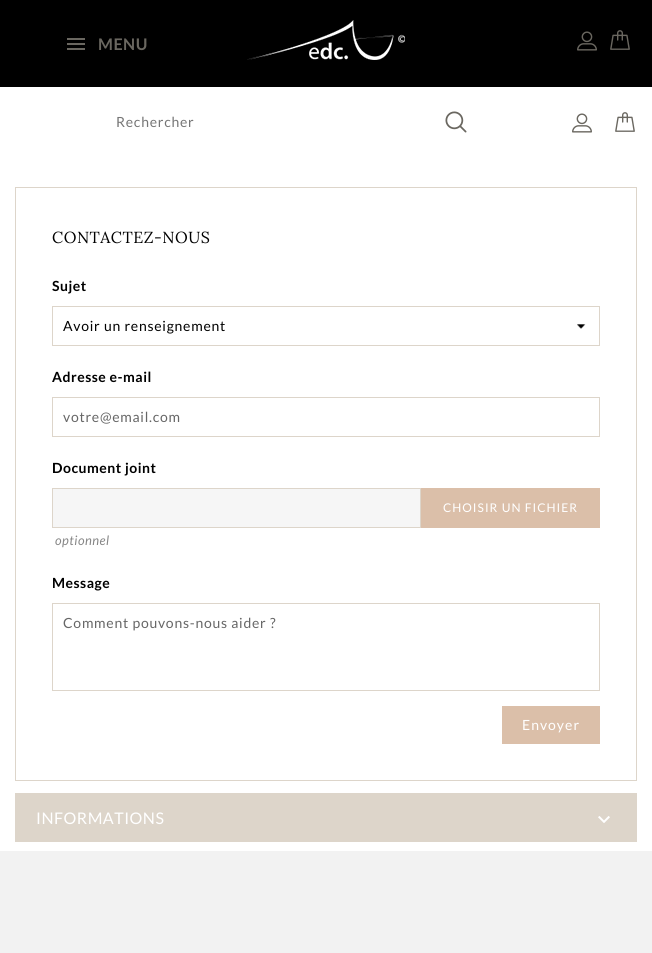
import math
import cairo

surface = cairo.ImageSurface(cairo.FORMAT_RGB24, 652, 953)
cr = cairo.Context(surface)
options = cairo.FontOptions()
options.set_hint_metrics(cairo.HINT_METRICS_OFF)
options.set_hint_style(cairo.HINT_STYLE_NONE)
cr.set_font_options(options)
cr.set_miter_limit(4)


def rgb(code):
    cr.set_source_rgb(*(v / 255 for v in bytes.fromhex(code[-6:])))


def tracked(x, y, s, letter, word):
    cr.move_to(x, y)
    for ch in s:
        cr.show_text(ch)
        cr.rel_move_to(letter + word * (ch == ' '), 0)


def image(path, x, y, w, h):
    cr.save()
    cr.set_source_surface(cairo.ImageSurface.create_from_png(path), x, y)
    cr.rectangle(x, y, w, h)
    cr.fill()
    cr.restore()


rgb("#f2f2f2")
cr.paint()
rgb("#ffffff")
cr.rectangle(0, 87, 652, 764)
cr.fill()
rgb("#000000")
cr.rectangle(0, 0, 652, 87)
cr.fill()
image("img/1.png", 247, 20, 158, 40)
image("img/2.png", 577, 31, 20, 20)
image("img/3.png", 610, 30, 20, 20)
for x, y, w, h, color in [
    (67, 38, 18, 2, "#6a6760"),
    (67, 43, 18, 2, "#6a6760"),
    (67, 48, 18, 2, "#6a6760"),
]:
    rgb(color)
    cr.rectangle(x, y, w, h)
    cr.fill()
image("img/4.png", 445, 111, 22, 22)
image("img/5.png", 572, 113, 20, 20)
image("img/6.png", 615, 112, 20, 20)
cr.rectangle(15.5, 187.5, 621, 593)
rgb("#ddd5ca")
cr.set_line_width(1)
cr.stroke()
image("img/7.png", 577, 324, 9, 5)
cr.rectangle(52.5, 306.5, 547, 39)
cr.stroke()
cr.rectangle(52.5, 397.5, 547, 39)
cr.stroke()
rgb("#f6f6f6")
cr.rectangle(52.5, 488.5, 368, 39)
cr.fill_preserve()
rgb("#ddd5ca")
cr.stroke()
rgb("#dbbfa9")
cr.rectangle(421, 488, 179, 40)
cr.fill()
cr.rectangle(52.5, 603.5, 547, 87)
rgb("#ddd5ca")
cr.stroke()
rgb("#dbbfa9")
cr.rectangle(502, 706, 98, 38)
cr.fill()
rgb("#ddd5ca")
cr.rectangle(15, 793, 622, 49)
cr.fill()
image("img/8.png", 598, 816, 12, 7)
cr.select_font_face("Lato", cairo.FONT_SLANT_NORMAL, cairo.FONT_WEIGHT_BOLD)
cr.set_font_size(16)
rgb("#6a6760")
tracked(98, 50, "MENU", 0.5, 0)
cr.select_font_face("Lato")
cr.set_font_size(14)
rgb("#757575")
tracked(116, 127, "Rechercher", 0.75, 0)
cr.select_font_face("Lora")
cr.set_font_size(16)
rgb("#000000")
tracked(52, 243, "CONTACTEZ-NOUS", 0.5, 0)
cr.select_font_face("Lato", cairo.FONT_SLANT_NORMAL, cairo.FONT_WEIGHT_BOLD)
cr.set_font_size(14)
tracked(52, 291, "Sujet", 0.5, 0)
cr.select_font_face("Lato")
tracked(63, 331, "Avoir un renseignement", 0.75, 0)
cr.select_font_face("Lato", cairo.FONT_SLANT_NORMAL, cairo.FONT_WEIGHT_BOLD)
tracked(52, 382, "Adresse e-mail", 0.5, 0)
cr.select_font_face("Lato")
rgb("#666666")
tracked(63, 422, "votre@email.com", 0.75, 0)
cr.select_font_face("Lato", cairo.FONT_SLANT_NORMAL, cairo.FONT_WEIGHT_BOLD)
rgb("#000000")
tracked(52, 473, "Document joint", 0.5, 0)
cr.select_font_face("Lato")
cr.set_font_size(12)
rgb("#ffffff")
tracked(443, 512, "CHOISIR UN FICHIER", 1, 0)
cr.select_font_face("Lato", cairo.FONT_SLANT_ITALIC)
cr.set_font_size(13)
rgb("#878787")
tracked(55, 545, "optionnel", 0.5, 0)
cr.select_font_face("Lato", cairo.FONT_SLANT_NORMAL, cairo.FONT_WEIGHT_BOLD)
cr.set_font_size(14)
rgb("#000000")
tracked(52, 588, "Message", 0.5, 0)
cr.select_font_face("Lato")
rgb("#666666")
tracked(63, 628, "Comment pouvons-nous aider ?", 0.75, 0)
rgb("#ffffff")
tracked(522, 730, "Envoyer", 1, 0)
cr.set_font_size(16)
tracked(36, 824, "INFORMATIONS", 0.5, 0)
surface.write_to_png("page.png")
